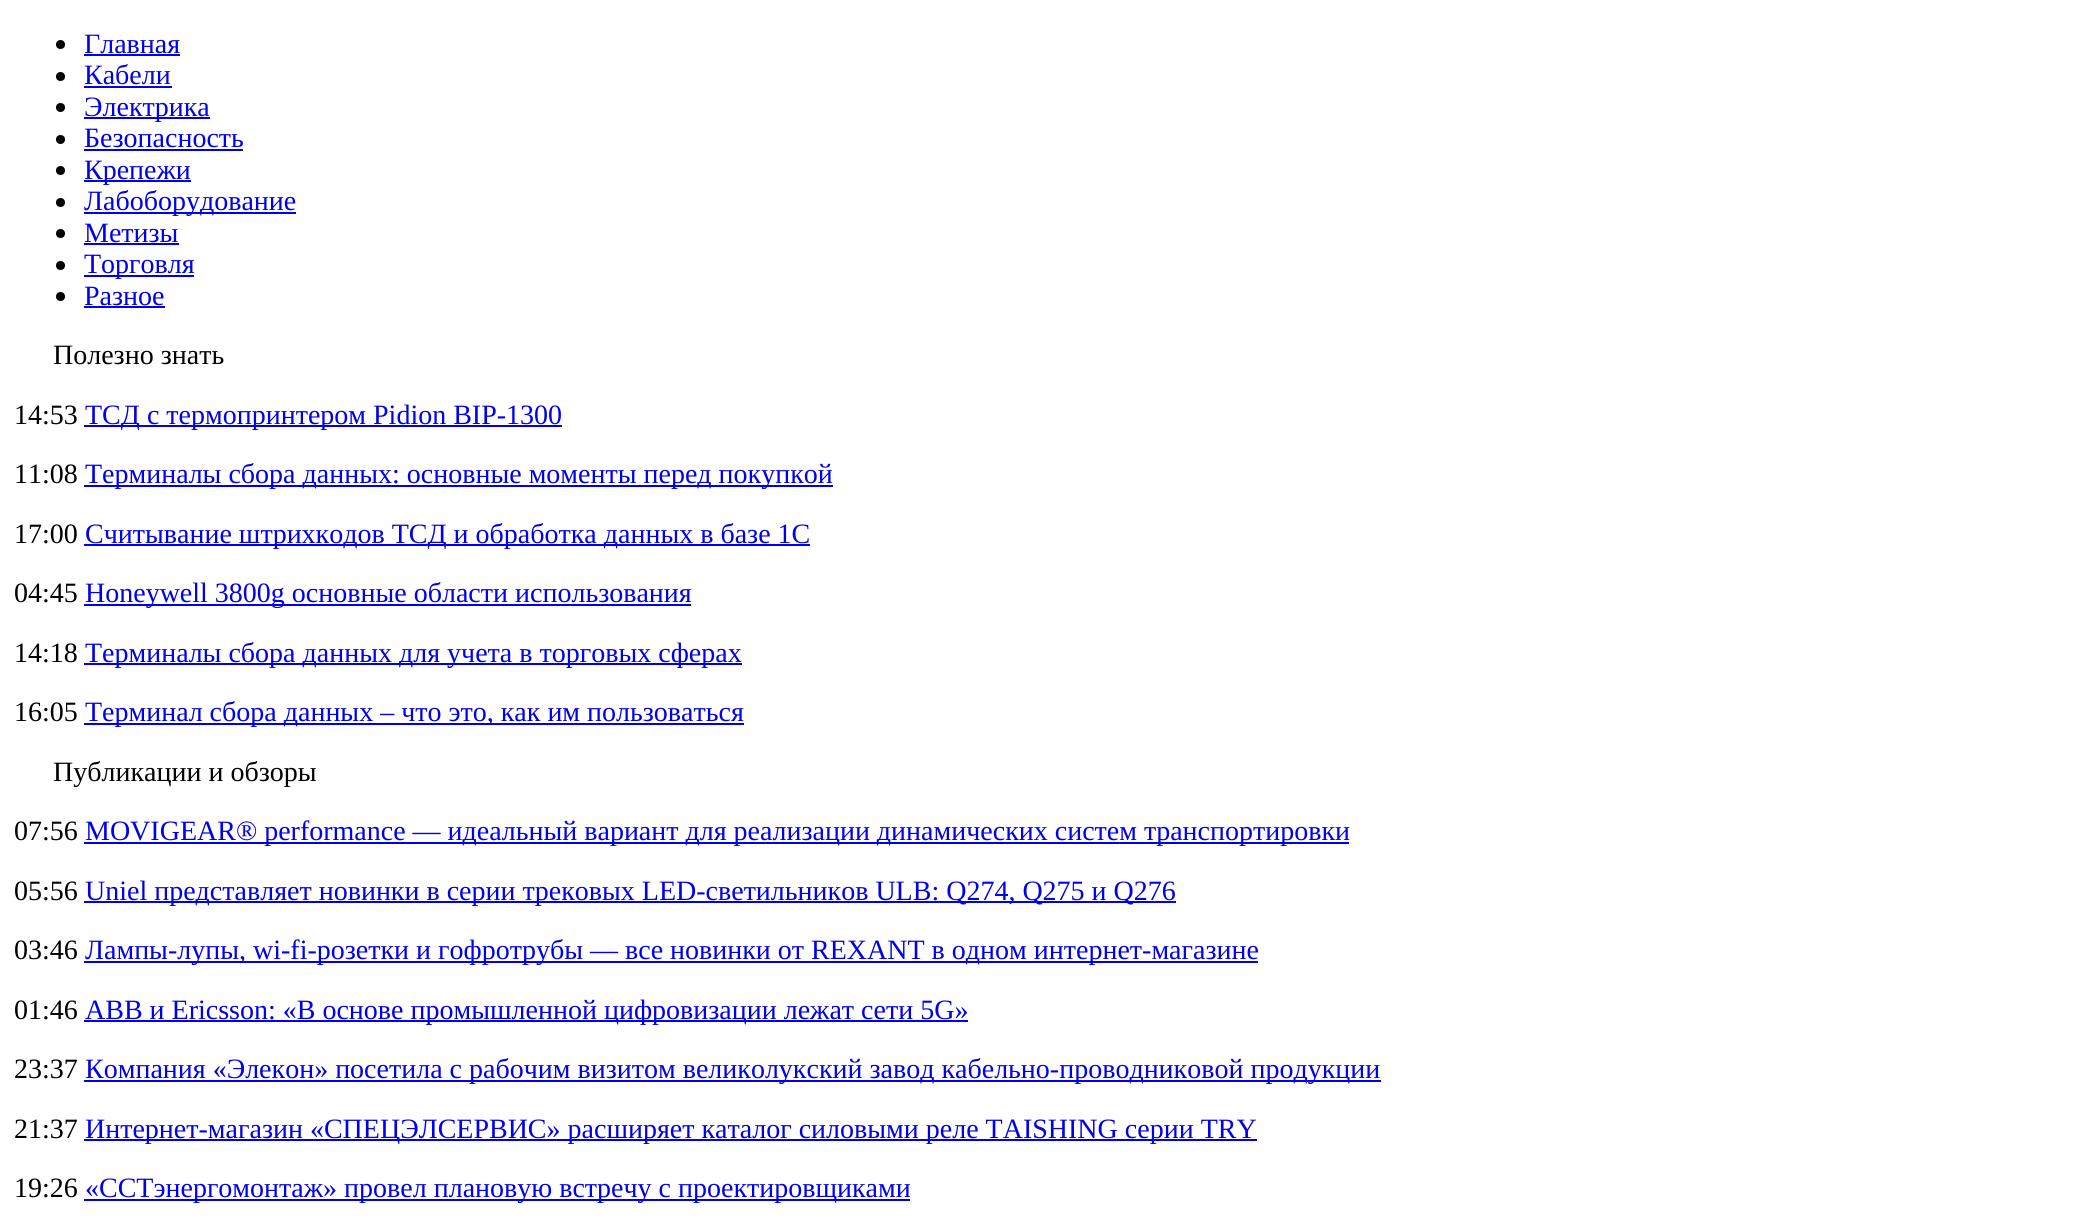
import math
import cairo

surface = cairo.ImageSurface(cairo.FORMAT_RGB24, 2093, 1222)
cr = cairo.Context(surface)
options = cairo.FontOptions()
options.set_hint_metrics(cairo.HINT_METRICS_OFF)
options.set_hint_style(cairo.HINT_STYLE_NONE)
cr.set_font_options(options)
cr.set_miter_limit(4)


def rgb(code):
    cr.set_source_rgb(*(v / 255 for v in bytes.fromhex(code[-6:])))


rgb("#ffffff")
cr.paint()
rgb("#000000")
cr.arc(60.5, 44.5, 4.5, 0, 2 * math.pi)
cr.fill()
rgb("#0000ee")
cr.rectangle(84, 54, 96, 2)
cr.fill()
rgb("#000000")
cr.arc(60.5, 76.5, 4.5, 0, 2 * math.pi)
cr.fill()
rgb("#0000ee")
cr.rectangle(84, 86, 88, 2)
cr.fill()
rgb("#000000")
cr.arc(60.5, 107.5, 4.5, 0, 2 * math.pi)
cr.fill()
rgb("#0000ee")
cr.rectangle(84, 117, 126, 2)
cr.fill()
rgb("#000000")
cr.arc(60.5, 139.5, 4.5, 0, 2 * math.pi)
cr.fill()
rgb("#0000ee")
cr.rectangle(84, 149, 159, 2)
cr.fill()
rgb("#000000")
cr.arc(60.5, 170.5, 4.5, 0, 2 * math.pi)
cr.fill()
rgb("#0000ee")
cr.rectangle(84, 180, 107, 2)
cr.fill()
rgb("#000000")
cr.arc(60.5, 202.5, 4.5, 0, 2 * math.pi)
cr.fill()
rgb("#0000ee")
cr.rectangle(84, 212, 212, 2)
cr.fill()
rgb("#000000")
cr.arc(60.5, 233.5, 4.5, 0, 2 * math.pi)
cr.fill()
rgb("#0000ee")
cr.rectangle(84, 243, 95, 2)
cr.fill()
rgb("#000000")
cr.arc(60.5, 265.5, 4.5, 0, 2 * math.pi)
cr.fill()
rgb("#0000ee")
cr.rectangle(84, 275, 110, 2)
cr.fill()
rgb("#000000")
cr.arc(60.5, 296.5, 4.5, 0, 2 * math.pi)
cr.fill()
for x, y, w, h, color in [
    (84, 306, 81, 2, "#0000ee"),
    (84, 425, 478, 2, "#0000ee"),
    (84, 485, 749, 2, "#0000ee"),
    (84, 544, 726, 2, "#0000ee"),
    (84, 604, 607, 2, "#0000ee"),
    (84, 663, 658, 2, "#0000ee"),
    (84, 723, 660, 2, "#0000ee"),
    (84, 842, 1265, 2, "#0000ee"),
    (84, 901, 1092, 2, "#0000ee"),
    (84, 961, 1174, 2, "#0000ee"),
    (84, 1020, 884, 2, "#0000ee"),
    (84, 1080, 1297, 2, "#0000ee"),
    (84, 1139, 1173, 2, "#0000ee"),
    (84, 1199, 826, 2, "#0000ee"),
]:
    rgb(color)
    cr.rectangle(x, y, w, h)
    cr.fill()
cr.select_font_face("Liberation Serif")
cr.set_font_size(28)
for x, y, s in [
    (84, 53, "Главная"),
    (84, 84, "Кабели"),
    (84, 116, "Электрика"),
    (84, 147, "Безопасность"),
    (84, 179, "Крепежи"),
    (84, 210, "Лабоборудование"),
    (84, 242, "Метизы"),
    (84, 273, "Торговля"),
    (84, 305, "Разное"),
]:
    cr.move_to(x, y)
    cr.show_text(s)
rgb("#000000")
cr.move_to(53, 364)
cr.show_text("Полезно знать")
cr.move_to(14, 424)
cr.show_text("14:53")
rgb("#0000ee")
cr.move_to(85, 424)
cr.show_text("ТСД с термопринтером Pidion BIP-1300")
rgb("#000000")
cr.move_to(14, 483)
cr.show_text("11:08")
rgb("#0000ee")
cr.move_to(85, 483)
cr.show_text("Терминалы сбора данных: основные моменты перед покупкой")
rgb("#000000")
cr.move_to(14, 543)
cr.show_text("17:00")
rgb("#0000ee")
cr.move_to(85, 543)
cr.show_text("Считывание штрихкодов ТСД и обработка данных в базе 1С")
rgb("#000000")
cr.move_to(14, 602)
cr.show_text("04:45")
rgb("#0000ee")
cr.move_to(85, 602)
cr.show_text("Honeywell 3800g основные области использования")
rgb("#000000")
cr.move_to(14, 662)
cr.show_text("14:18")
rgb("#0000ee")
cr.move_to(85, 662)
cr.show_text("Терминалы сбора данных для учета в торговых сферах")
rgb("#000000")
cr.move_to(14, 721)
cr.show_text("16:05")
rgb("#0000ee")
cr.move_to(85, 721)
cr.show_text("Терминал сбора данных – что это, как им пользоваться")
rgb("#000000")
cr.move_to(53, 781)
cr.show_text("Публикации и обзоры")
cr.move_to(14, 840)
cr.show_text("07:56")
rgb("#0000ee")
cr.move_to(85, 840)
cr.show_text("MOVIGEAR® performance — идеальный вариант для реализации динамических систем транспортировки")
rgb("#000000")
cr.move_to(14, 900)
cr.show_text("05:56")
rgb("#0000ee")
cr.move_to(85, 900)
cr.show_text("Uniel представляет новинки в серии трековых LED-светильников ULB: Q274, Q275 и Q276")
rgb("#000000")
cr.move_to(14, 959)
cr.show_text("03:46")
rgb("#0000ee")
cr.move_to(85, 959)
cr.show_text("Лампы-лупы, wi-fi-розетки и гофротрубы — все новинки от REXANT в одном интернет-магазине")
rgb("#000000")
cr.move_to(14, 1019)
cr.show_text("01:46")
rgb("#0000ee")
cr.move_to(85, 1019)
cr.show_text("ABB и Ericsson: «В основе промышленной цифровизации лежат сети 5G»")
rgb("#000000")
cr.move_to(14, 1078)
cr.show_text("23:37")
rgb("#0000ee")
cr.move_to(85, 1078)
cr.show_text("Компания «Элекон» посетила с рабочим визитом великолукский завод кабельно-проводниковой продукции")
rgb("#000000")
cr.move_to(14, 1138)
cr.show_text("21:37")
rgb("#0000ee")
cr.move_to(85, 1138)
cr.show_text("Интернет-магазин «СПЕЦЭЛСЕРВИС» расширяет каталог силовыми реле TAISHING серии TRY")
rgb("#000000")
cr.move_to(14, 1197)
cr.show_text("19:26")
rgb("#0000ee")
cr.move_to(85, 1197)
cr.show_text("«ССТэнергомонтаж» провел плановую встречу с проектировщиками")
surface.write_to_png("page.png")
